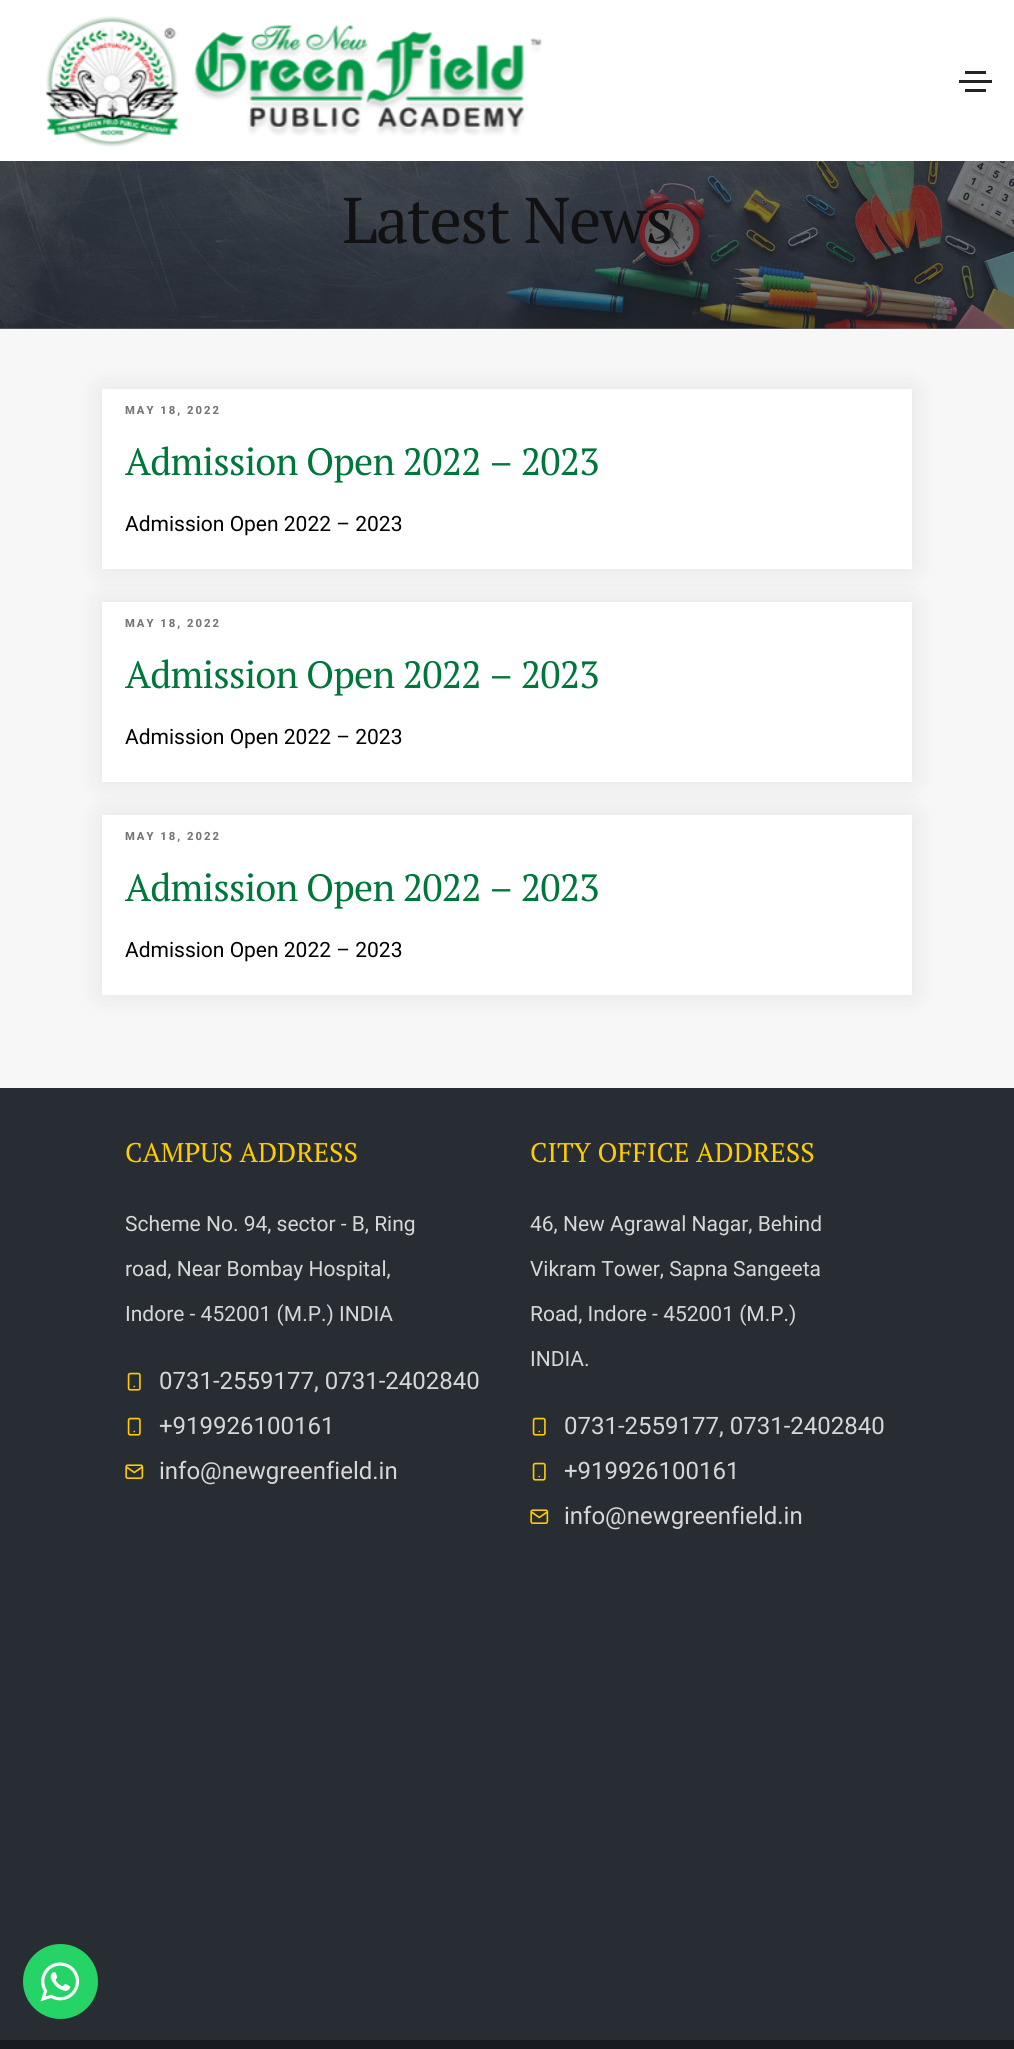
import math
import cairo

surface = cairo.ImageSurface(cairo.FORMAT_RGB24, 1014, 2049)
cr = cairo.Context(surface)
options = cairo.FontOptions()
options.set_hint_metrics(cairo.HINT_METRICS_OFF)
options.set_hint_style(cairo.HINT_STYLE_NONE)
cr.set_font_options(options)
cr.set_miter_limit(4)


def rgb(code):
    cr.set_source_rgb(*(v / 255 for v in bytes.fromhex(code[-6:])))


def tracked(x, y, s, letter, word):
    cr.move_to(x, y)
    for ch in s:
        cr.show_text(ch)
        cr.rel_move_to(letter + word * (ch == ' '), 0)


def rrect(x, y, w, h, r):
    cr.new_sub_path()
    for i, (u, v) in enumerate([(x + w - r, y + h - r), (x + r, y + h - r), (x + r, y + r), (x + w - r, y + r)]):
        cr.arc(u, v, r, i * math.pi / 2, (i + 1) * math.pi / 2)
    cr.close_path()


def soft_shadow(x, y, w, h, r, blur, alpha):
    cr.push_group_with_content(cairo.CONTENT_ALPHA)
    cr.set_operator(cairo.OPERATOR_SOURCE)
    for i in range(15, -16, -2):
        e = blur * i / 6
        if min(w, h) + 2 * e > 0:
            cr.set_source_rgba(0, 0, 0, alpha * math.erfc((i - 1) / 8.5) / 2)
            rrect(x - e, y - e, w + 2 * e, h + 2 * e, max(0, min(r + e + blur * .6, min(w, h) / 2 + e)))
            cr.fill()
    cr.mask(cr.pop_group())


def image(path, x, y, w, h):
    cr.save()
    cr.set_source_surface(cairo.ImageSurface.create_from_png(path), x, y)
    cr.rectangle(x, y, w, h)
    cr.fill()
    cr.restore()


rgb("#797b80")
cr.paint()
rgb("#ffffff")
cr.rectangle(0, 0, 1014, 161)
cr.fill()
image("img/1.png", 46, 16, 496, 131)
for x, y, w, h, color in [
    (965, 71, 21, 3, "#232323"),
    (959, 80, 33, 3, "#232323"),
    (965, 89, 21, 3, "#232323"),
]:
    rgb(color)
    cr.rectangle(x, y, w, h)
    cr.fill()
image("img/2.png", 0, 161, 1014, 168)
rgb("#f7f7f7")
cr.rectangle(0, 329, 1014, 759)
cr.fill()
rgb("#000000")
soft_shadow(102, 389, 810, 180, 0, 15, 0.08)
rgb("#ffffff")
cr.rectangle(102, 389, 810, 180)
cr.fill()
rgb("#000000")
soft_shadow(102, 602, 810, 180, 0, 15, 0.08)
rgb("#ffffff")
cr.rectangle(102, 602, 810, 180)
cr.fill()
rgb("#000000")
soft_shadow(102, 815, 810, 180, 0, 15, 0.08)
rgb("#ffffff")
cr.rectangle(102, 815, 810, 180)
cr.fill()
rgb("#282d33")
cr.rectangle(0, 1088, 1014, 952)
cr.fill()
image("img/3.png", 127, 1372, 14, 19)
image("img/3.png", 127, 1417, 14, 19)
image("img/4.png", 125, 1464, 19, 15)
image("img/3.png", 532, 1417, 14, 19)
image("img/3.png", 532, 1462, 14, 19)
image("img/4.png", 530, 1509, 19, 15)
rgb("#181c20")
cr.rectangle(0, 2040, 1014, 9)
cr.fill()
rgb("#25d366")
cr.arc(60.5, 1981.5, 37.5, 0, 2 * math.pi)
cr.fill()
image("img/5.png", 40, 1962, 40, 40)
cr.select_font_face("PT Serif")
cr.set_font_size(64.5)
rgb("#111111")
tracked(342, 243, "Latest News", -1.5, 0)
cr.select_font_face("Roboto ExtraBold")
cr.set_font_size(11.25)
rgb("#767676")
tracked(125, 414, "MAY 18, 2022", 2, 0)
cr.select_font_face("PT Serif")
cr.set_font_size(38)
rgb("#00773a")
tracked(125, 475, "Admission Open 2022 – 2023", -0.75, 0)
cr.select_font_face("Roboto")
cr.set_font_size(21)
rgb("#000000")
cr.move_to(125, 531)
cr.show_text("Admission Open 2022 – 2023")
cr.select_font_face("Roboto ExtraBold")
cr.set_font_size(11.25)
rgb("#767676")
tracked(125, 627, "MAY 18, 2022", 2, 0)
cr.select_font_face("PT Serif")
cr.set_font_size(38)
rgb("#00773a")
tracked(125, 688, "Admission Open 2022 – 2023", -0.75, 0)
cr.select_font_face("Roboto")
cr.set_font_size(21)
rgb("#000000")
cr.move_to(125, 744)
cr.show_text("Admission Open 2022 – 2023")
cr.select_font_face("Roboto ExtraBold")
cr.set_font_size(11.25)
rgb("#767676")
tracked(125, 840, "MAY 18, 2022", 2, 0)
cr.select_font_face("PT Serif")
cr.set_font_size(38)
rgb("#00773a")
tracked(125, 901, "Admission Open 2022 – 2023", -0.75, 0)
cr.select_font_face("Roboto")
cr.set_font_size(21)
rgb("#000000")
cr.move_to(125, 957)
cr.show_text("Admission Open 2022 – 2023")
cr.select_font_face("PT Serif")
cr.set_font_size(27)
rgb("#fecc00")
cr.move_to(125, 1162)
cr.show_text("CAMPUS ADDRESS")
cr.select_font_face("Roboto")
cr.set_font_size(21)
rgb("#d7d7d7")
for x, y, s in [
    (125, 1231, "Scheme No. 94, sector - B, Ring"),
    (125, 1276, "road, Near Bombay Hospital,"),
    (125, 1321, "Indore - 452001 (M.P.) INDIA"),
]:
    cr.move_to(x, y)
    cr.show_text(s)
cr.set_font_size(24)
for x, y, s in [
    (159, 1389, "0731-2559177, 0731-2402840"),
    (159, 1434, "+919926100161"),
    (159, 1479, "info@newgreenfield.in"),
]:
    cr.move_to(x, y)
    cr.show_text(s)
cr.select_font_face("PT Serif")
cr.set_font_size(27)
rgb("#fecc00")
cr.move_to(530, 1162)
cr.show_text("CITY OFFICE ADDRESS")
cr.select_font_face("Roboto")
cr.set_font_size(21)
rgb("#d7d7d7")
for x, y, s in [
    (530, 1231, "46, New Agrawal Nagar, Behind"),
    (530, 1276, "Vikram Tower, Sapna Sangeeta"),
    (530, 1321, "Road, Indore - 452001 (M.P.)"),
    (530, 1366, "INDIA."),
]:
    cr.move_to(x, y)
    cr.show_text(s)
cr.set_font_size(24)
for x, y, s in [
    (564, 1434, "0731-2559177, 0731-2402840"),
    (564, 1479, "+919926100161"),
    (564, 1524, "info@newgreenfield.in"),
]:
    cr.move_to(x, y)
    cr.show_text(s)
surface.write_to_png("page.png")
